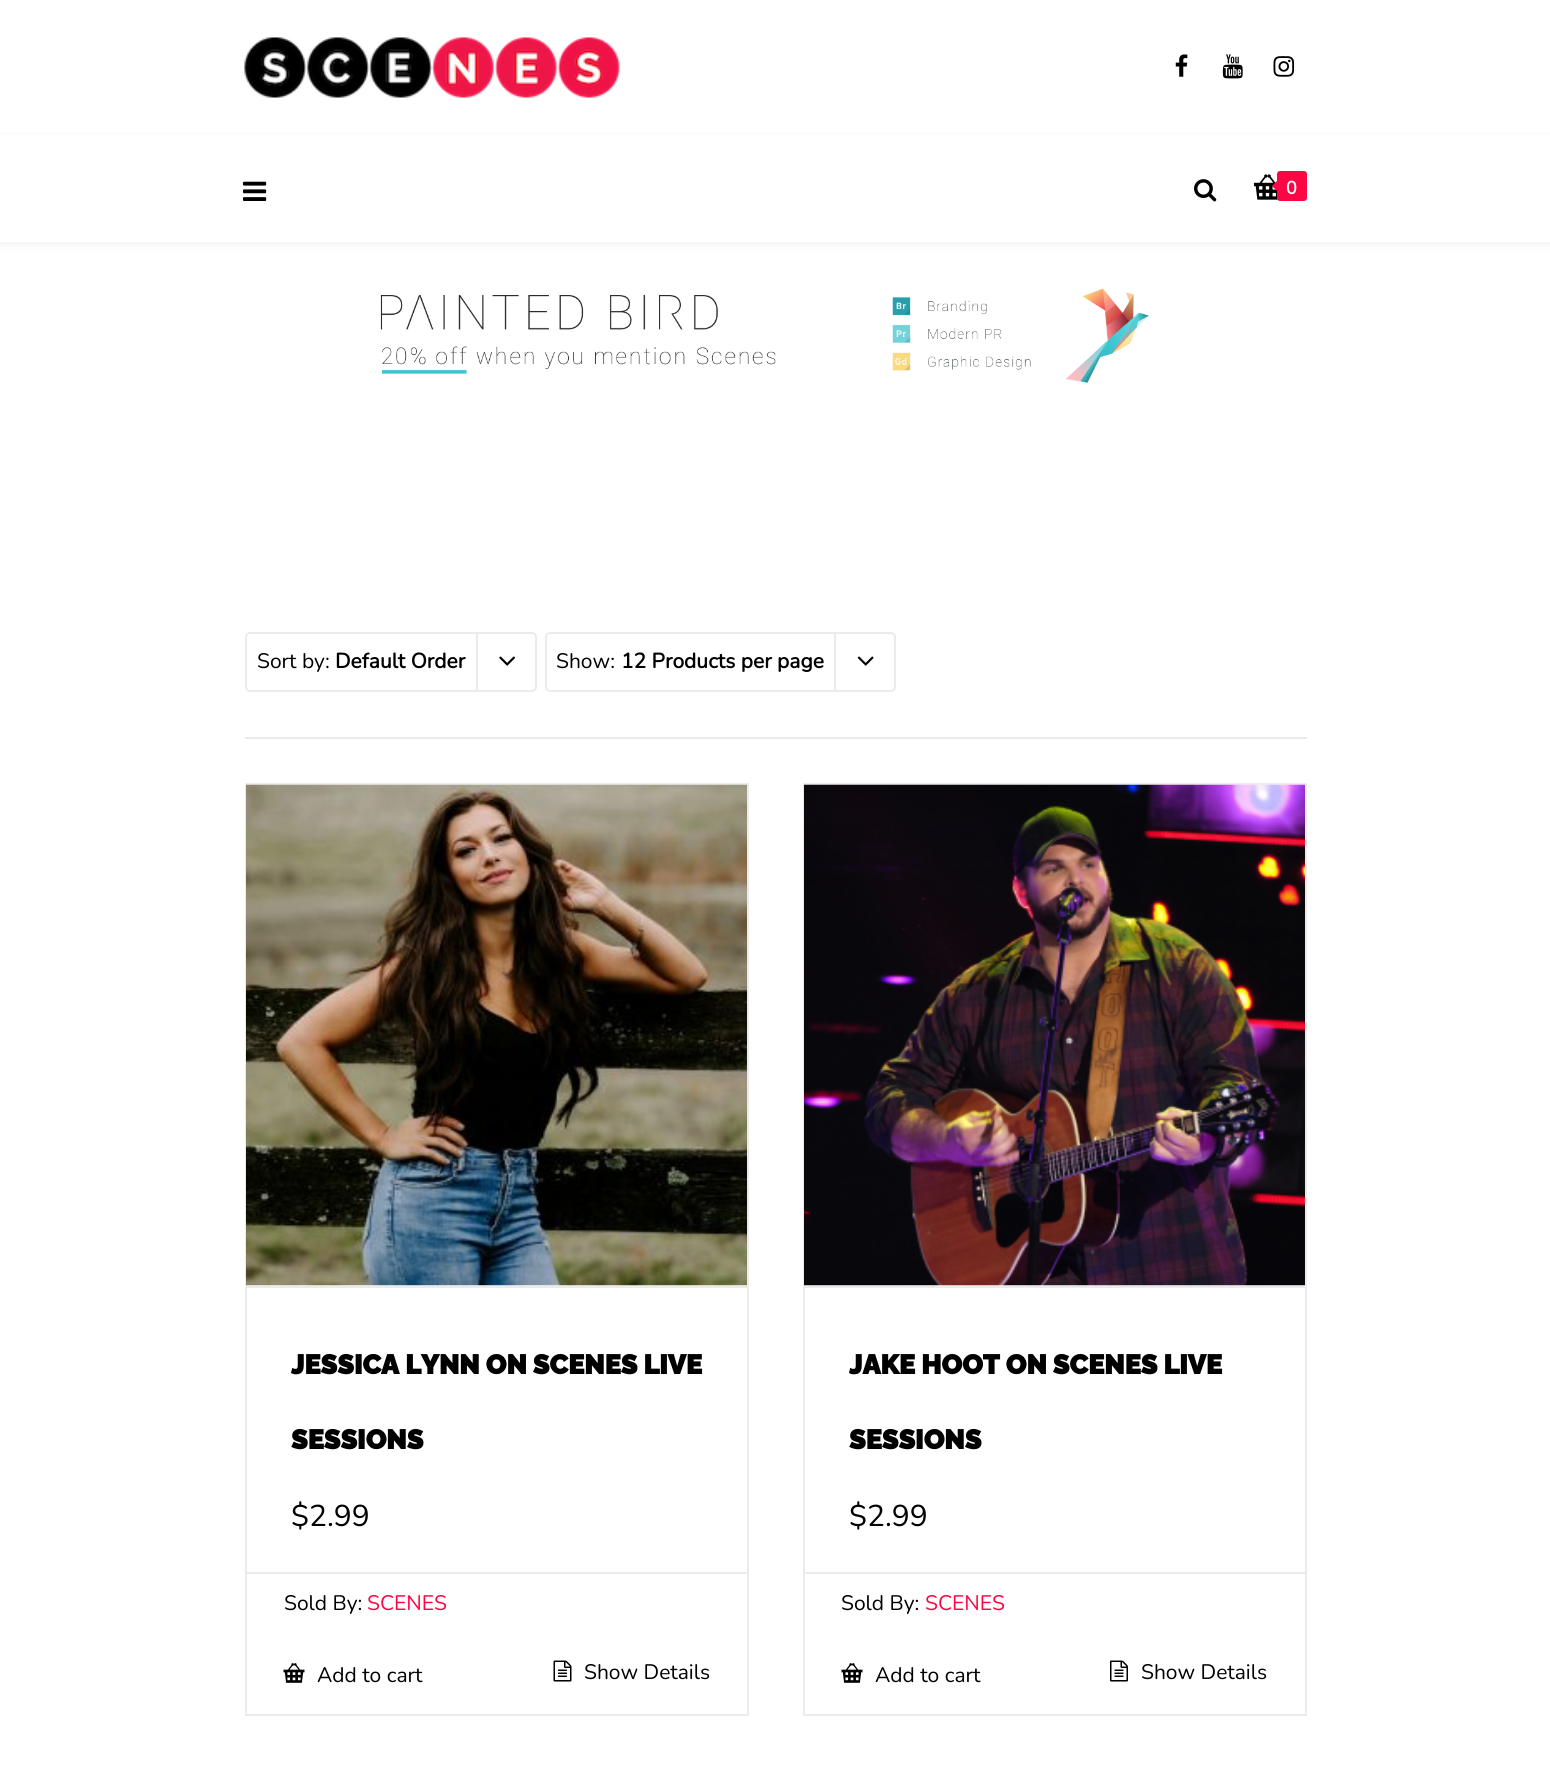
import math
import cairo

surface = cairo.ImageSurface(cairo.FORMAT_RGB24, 1550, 1772)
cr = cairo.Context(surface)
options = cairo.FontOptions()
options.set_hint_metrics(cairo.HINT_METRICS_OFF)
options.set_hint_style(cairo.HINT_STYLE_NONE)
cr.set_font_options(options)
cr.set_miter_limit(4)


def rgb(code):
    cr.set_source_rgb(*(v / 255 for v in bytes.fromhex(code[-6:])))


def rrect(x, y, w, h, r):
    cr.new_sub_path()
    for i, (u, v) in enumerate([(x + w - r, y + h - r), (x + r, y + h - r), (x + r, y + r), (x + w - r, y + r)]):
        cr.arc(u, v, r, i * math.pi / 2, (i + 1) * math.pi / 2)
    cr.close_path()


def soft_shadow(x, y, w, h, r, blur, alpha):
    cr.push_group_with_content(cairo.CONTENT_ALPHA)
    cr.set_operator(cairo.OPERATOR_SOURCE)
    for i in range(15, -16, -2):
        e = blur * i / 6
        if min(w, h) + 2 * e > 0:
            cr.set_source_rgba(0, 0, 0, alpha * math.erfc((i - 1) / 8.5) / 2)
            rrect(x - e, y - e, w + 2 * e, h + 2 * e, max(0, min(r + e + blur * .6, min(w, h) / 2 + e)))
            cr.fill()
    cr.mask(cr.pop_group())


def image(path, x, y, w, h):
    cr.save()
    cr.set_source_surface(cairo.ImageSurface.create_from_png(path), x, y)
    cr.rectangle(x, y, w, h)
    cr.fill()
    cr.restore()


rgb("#ffffff")
cr.paint()
image("img/1.png", 244, 37, 376, 61)
image("img/2.png", 1175, 54, 13, 23)
image("img/3.png", 1222, 54, 21, 25)
image("img/4.png", 1273, 56, 22, 21)
rgb("#000000")
soft_shadow(0, 138, 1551, 107, 0, 4.5, 0.05)
rgb("#ffffff")
cr.rectangle(0, 135, 1550, 107)
cr.fill()
image("img/5.png", 243, 181, 24, 20)
image("img/6.png", 1194, 179, 23, 23)
image("img/7.png", 1254, 174, 24, 26)
rgb("#fd0646")
rrect(1277, 171, 30, 30, 3)
cr.fill()
cr.new_path()
cr.move_to(1279.5, 178.5)
cr.line_to(1279.5, 193.5)
cr.line_to(1272, 186)
cr.close_path()
cr.fill()
image("img/8.png", 380, 288, 769, 95)
rgb("#ebebeb")
cr.rectangle(245, 737, 1062, 2)
cr.fill()
rrect(246, 633, 290, 58, 4)
cr.stroke()
cr.rectangle(476, 632, 2, 58)
cr.fill()
image("img/9.png", 499, 656, 17, 10)
rrect(546, 633, 349, 58, 4)
cr.stroke()
cr.rectangle(834, 632, 2, 58)
cr.fill()
image("img/10.png", 857, 656, 17, 10)
cr.rectangle(246, 784, 502, 931)
cr.stroke()
image("img/11.png", 246, 784, 501, 502)
cr.rectangle(246, 1286, 501, 2)
cr.fill()
cr.rectangle(246, 1572, 501, 2)
cr.fill()
image("img/12.png", 283, 1663, 22, 20)
image("img/13.png", 553, 1660, 19, 22)
cr.rectangle(804, 784, 502, 931)
cr.stroke()
image("img/14.png", 804, 784, 501, 502)
cr.rectangle(804, 1286, 501, 2)
cr.fill()
cr.rectangle(804, 1572, 501, 2)
cr.fill()
image("img/12.png", 841, 1663, 22, 20)
image("img/15.png", 1110, 1660, 18, 22)
cr.select_font_face("Nunito", cairo.FONT_SLANT_NORMAL, cairo.FONT_WEIGHT_BOLD)
cr.set_font_size(18)
rgb("#ffffff")
cr.move_to(1286, 194)
cr.show_text("0")
cr.select_font_face("Nunito ExtraLight")
cr.set_font_size(21)
rgb("#000000")
cr.move_to(257, 668)
cr.show_text("Sort by:")
cr.select_font_face("Nunito", cairo.FONT_SLANT_NORMAL, cairo.FONT_WEIGHT_BOLD)
cr.move_to(335, 668)
cr.show_text("Default Order")
cr.select_font_face("Nunito ExtraLight")
cr.move_to(556, 668)
cr.show_text("Show:")
cr.select_font_face("Nunito", cairo.FONT_SLANT_NORMAL, cairo.FONT_WEIGHT_BOLD)
cr.move_to(621, 668)
cr.show_text("12 Products per page")
cr.select_font_face("Raleway", cairo.FONT_SLANT_NORMAL, cairo.FONT_WEIGHT_BOLD)
cr.set_font_size(27)
cr.move_to(291, 1374)
cr.show_text("JESSICA LYNN ON SCENES LIVE")
cr.move_to(291, 1449)
cr.show_text("SESSIONS")
cr.select_font_face("Nunito ExtraLight")
cr.set_font_size(30)
cr.move_to(291, 1526)
cr.show_text("$2.99")
cr.set_font_size(21)
cr.move_to(284, 1610)
cr.show_text("Sold By:")
rgb("#fd0646")
cr.move_to(367, 1610)
cr.show_text("SCENES")
rgb("#000000")
cr.move_to(317, 1682)
cr.show_text("Add to cart")
cr.move_to(584, 1679)
cr.show_text("Show Details")
cr.select_font_face("Raleway", cairo.FONT_SLANT_NORMAL, cairo.FONT_WEIGHT_BOLD)
cr.set_font_size(27)
cr.move_to(849, 1374)
cr.show_text("JAKE HOOT ON SCENES LIVE")
cr.move_to(849, 1449)
cr.show_text("SESSIONS")
cr.select_font_face("Nunito ExtraLight")
cr.set_font_size(30)
cr.move_to(849, 1526)
cr.show_text("$2.99")
cr.set_font_size(21)
cr.move_to(841, 1610)
cr.show_text("Sold By:")
rgb("#fd0646")
cr.move_to(925, 1610)
cr.show_text("SCENES")
rgb("#000000")
cr.move_to(875, 1682)
cr.show_text("Add to cart")
cr.move_to(1141, 1679)
cr.show_text("Show Details")
surface.write_to_png("page.png")
